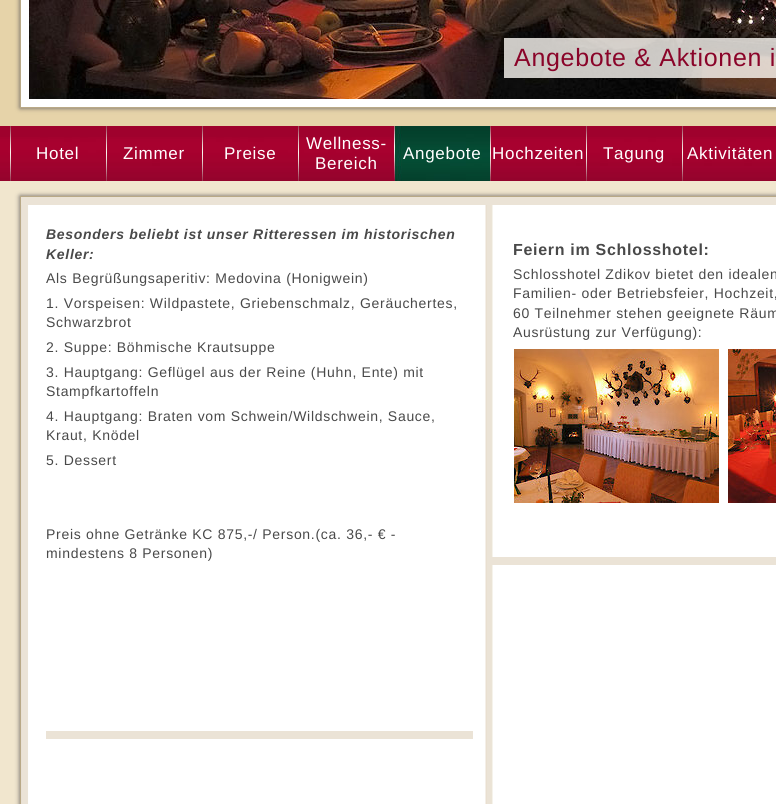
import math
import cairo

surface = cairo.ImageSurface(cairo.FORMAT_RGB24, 776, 804)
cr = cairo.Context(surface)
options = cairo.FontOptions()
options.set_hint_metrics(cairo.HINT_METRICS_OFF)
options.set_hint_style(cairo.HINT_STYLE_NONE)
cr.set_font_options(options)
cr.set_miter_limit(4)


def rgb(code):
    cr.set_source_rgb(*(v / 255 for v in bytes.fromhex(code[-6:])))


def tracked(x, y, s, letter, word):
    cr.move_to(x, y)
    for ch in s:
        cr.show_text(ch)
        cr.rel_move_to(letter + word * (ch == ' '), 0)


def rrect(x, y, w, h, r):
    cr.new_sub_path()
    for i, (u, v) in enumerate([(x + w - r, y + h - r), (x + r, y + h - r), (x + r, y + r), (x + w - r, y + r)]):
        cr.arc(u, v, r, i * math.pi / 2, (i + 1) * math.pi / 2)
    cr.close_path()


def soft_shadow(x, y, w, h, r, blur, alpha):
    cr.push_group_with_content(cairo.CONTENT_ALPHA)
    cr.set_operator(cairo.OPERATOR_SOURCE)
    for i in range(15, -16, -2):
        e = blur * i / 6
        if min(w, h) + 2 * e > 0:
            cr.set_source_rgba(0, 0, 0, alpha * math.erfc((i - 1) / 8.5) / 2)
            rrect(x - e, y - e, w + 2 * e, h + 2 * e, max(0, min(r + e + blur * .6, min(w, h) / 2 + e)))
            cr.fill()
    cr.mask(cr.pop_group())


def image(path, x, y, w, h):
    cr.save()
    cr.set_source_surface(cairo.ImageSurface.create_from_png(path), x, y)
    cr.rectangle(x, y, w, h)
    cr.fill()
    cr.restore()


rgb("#f1e6ce")
cr.paint()
rgb("#e6d3a9")
cr.rectangle(0, 0, 776, 126)
cr.fill()
rgb("#615c5c")
soft_shadow(20, -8, 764, 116, 0, 2.5, 1)
rgb("#ffffff")
cr.rectangle(20.5, -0.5, 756, 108)
cr.fill_preserve()
rgb("#b9a987")
cr.set_line_width(1)
cr.stroke()
image("img/1.png", 29, 0, 747, 99)
cr.set_source_rgba(0.988, 0.976, 0.957, 0.8)
cr.rectangle(504, 38, 272, 40)
cr.fill()
rgb("#9f012d")
cr.rectangle(0, 126, 776, 11)
cr.fill()
image("img/2.png", 0, 137, 776, 44)
image("img/3.png", 10, 126, 1, 55)
image("img/3.png", 106, 126, 1, 55)
image("img/3.png", 202, 126, 1, 55)
image("img/3.png", 298, 126, 1, 55)
image("img/4.png", 394, 126, 96, 55)
image("img/3.png", 490, 126, 1, 55)
image("img/3.png", 586, 126, 1, 55)
image("img/3.png", 682, 126, 1, 55)
rgb("#615c5c")
soft_shadow(20, 196, 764, 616, 0, 2.5, 1)
image("img/5.png", 21, 205, 755, 599)
rgb("#b9a987")
cr.rectangle(20, 196, 756, 1)
cr.fill()
cr.new_path()
cr.move_to(20, 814)
cr.line_to(20, 196)
cr.line_to(21, 197)
cr.line_to(21, 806)
cr.close_path()
cr.fill()
rgb("#ebe3d6")
cr.rectangle(21, 197, 755, 8)
cr.fill()
cr.rectangle(46, 731, 427, 8)
cr.fill()
image("img/6.png", 514, 349, 205, 154)
image("img/7.png", 728, 349, 48, 154)
cr.rectangle(488, 557, 288, 8)
cr.fill()
cr.select_font_face("Liberation Sans")
cr.set_font_size(25)
rgb("#8a0429")
tracked(514, 66, "Angebote & Aktionen i", 0.7, 0)
cr.set_font_size(17)
rgb("#ffffff")
for x, y, s in [
    (36, 159, "Hotel"),
    (123, 159, "Zimmer"),
    (224, 159, "Preise"),
    (306, 149, "Wellness-"),
    (315, 169, "Bereich"),
    (403, 159, "Angebote"),
    (492, 159, "Hochzeiten"),
    (603, 159, "Tagung"),
    (687, 159, "Aktivitäten"),
]:
    tracked(x, y, s, 0.7, 0)
cr.select_font_face("Liberation Sans", cairo.FONT_SLANT_ITALIC, cairo.FONT_WEIGHT_BOLD)
cr.set_font_size(14)
rgb("#494949")
tracked(46, 239, "Besonders beliebt ist unser Ritteressen im historischen", 0.7, 0)
tracked(46, 259, "Keller:", 0.7, 0)
cr.select_font_face("Liberation Sans")
for x, y, s in [
    (46, 283, "Als Begrüßungsaperitiv: Medovina (Honigwein)"),
    (46, 308, "1. Vorspeisen: Wildpastete, Griebenschmalz, Geräuchertes,"),
    (46, 327, "Schwarzbrot"),
    (46, 352, "2. Suppe: Böhmische Krautsuppe"),
    (46, 377, "3. Hauptgang: Geflügel aus der Reine (Huhn, Ente) mit"),
    (46, 396, "Stampfkartoffeln"),
    (46, 421, "4. Hauptgang: Braten vom Schwein/Wildschwein, Sauce,"),
    (46, 440, "Kraut, Knödel"),
    (46, 465, "5. Dessert"),
    (46, 539, "Preis ohne Getränke KC 875,-/ Person.(ca. 36,- € -"),
    (46, 558, "mindestens 8 Personen)"),
]:
    tracked(x, y, s, 0.7, 0)
cr.select_font_face("Liberation Sans", cairo.FONT_SLANT_NORMAL, cairo.FONT_WEIGHT_BOLD)
cr.set_font_size(16)
tracked(513, 255, "Feiern im Schlosshotel:", 0.7, 0)
cr.select_font_face("Liberation Sans")
cr.set_font_size(14)
for x, y, s in [
    (513, 279, "Schlosshotel Zdikov bietet den idealen"),
    (513, 298, "Familien- oder Betriebsfeier, Hochzeit,"),
    (513, 318, "60 Teilnehmer stehen geeignete Räum"),
    (513, 337, "Ausrüstung zur Verfügung):"),
]:
    tracked(x, y, s, 0.7, 0)
surface.write_to_png("page.png")
